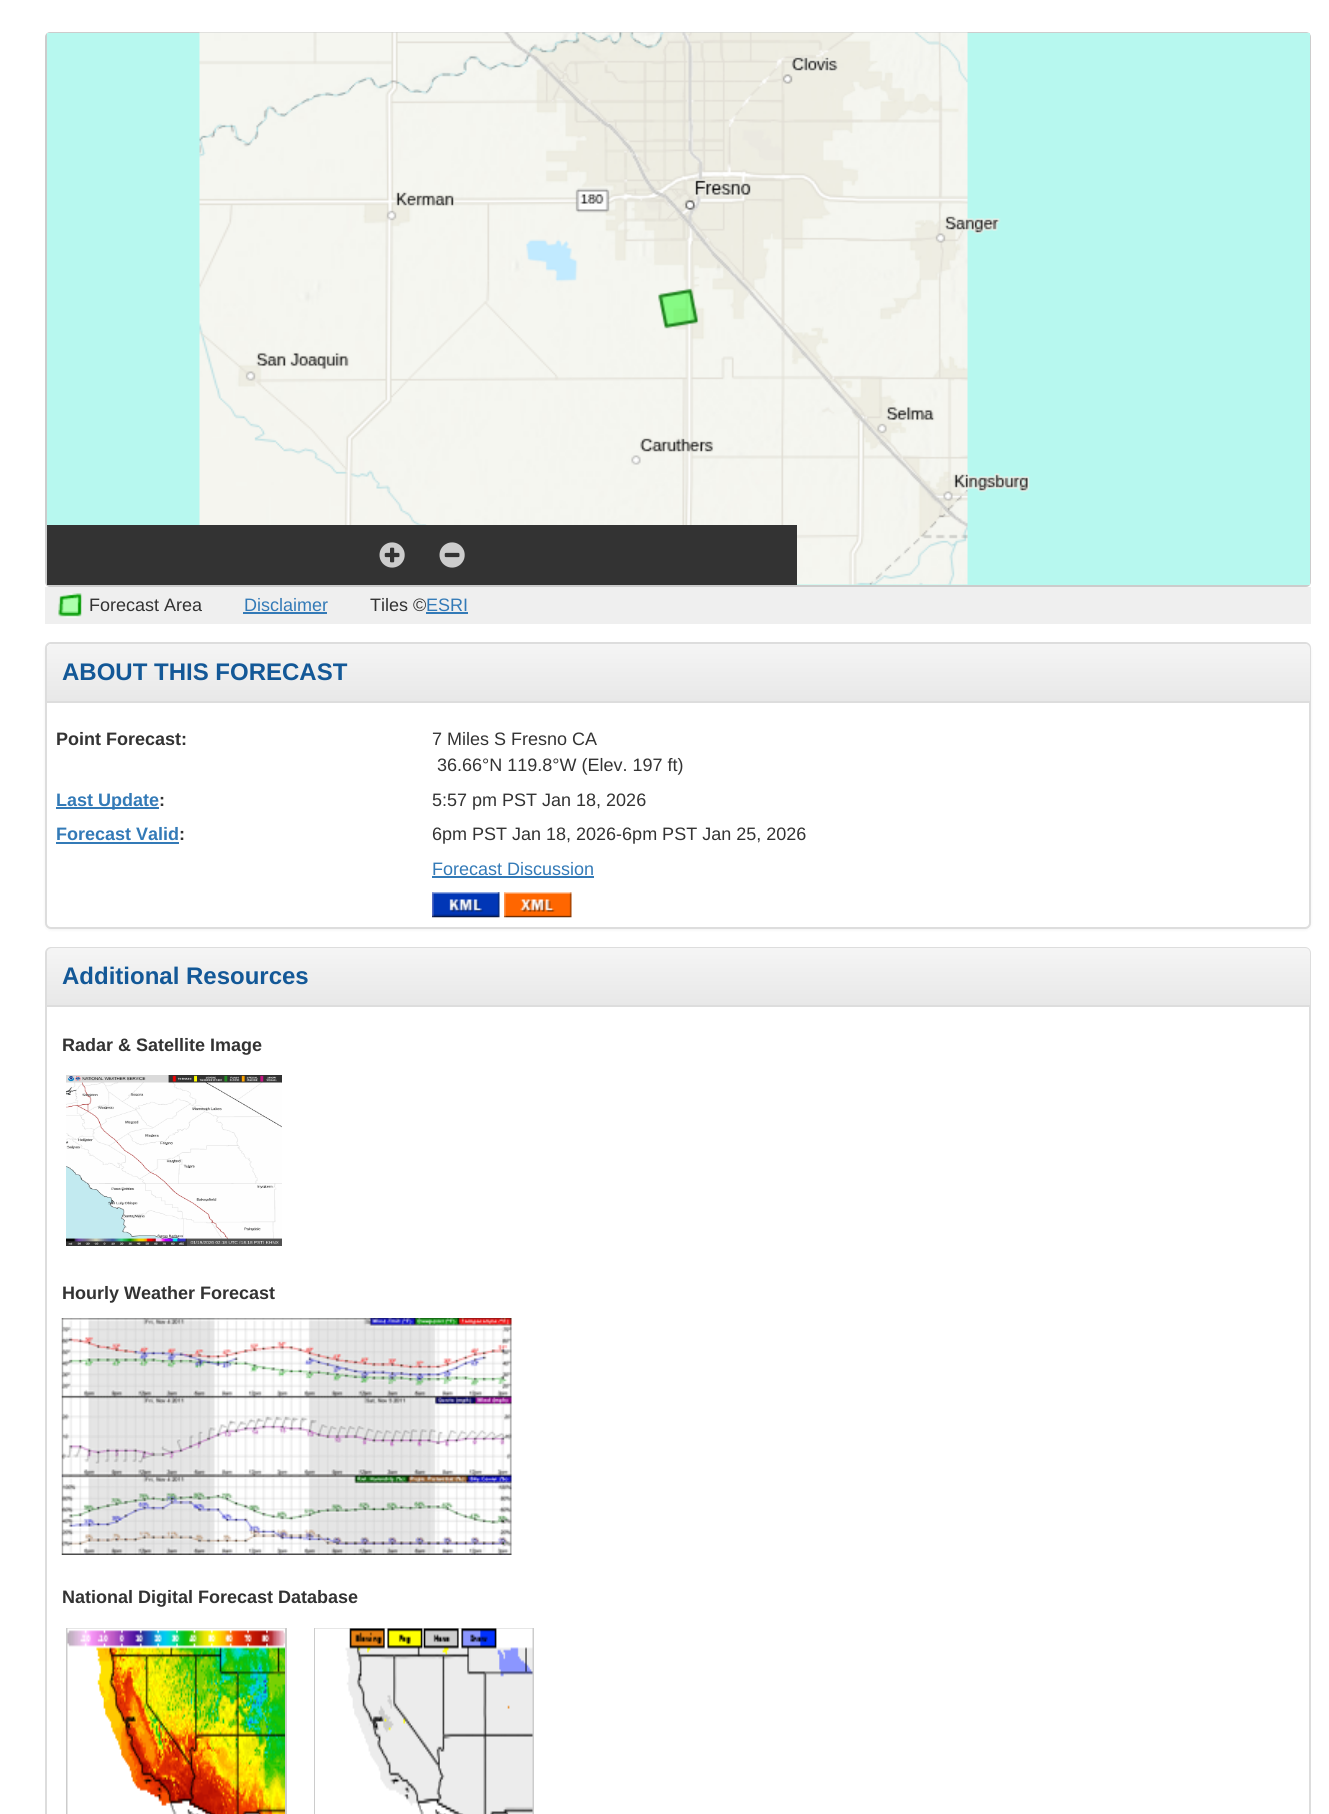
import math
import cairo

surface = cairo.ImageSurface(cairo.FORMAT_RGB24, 1329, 1814)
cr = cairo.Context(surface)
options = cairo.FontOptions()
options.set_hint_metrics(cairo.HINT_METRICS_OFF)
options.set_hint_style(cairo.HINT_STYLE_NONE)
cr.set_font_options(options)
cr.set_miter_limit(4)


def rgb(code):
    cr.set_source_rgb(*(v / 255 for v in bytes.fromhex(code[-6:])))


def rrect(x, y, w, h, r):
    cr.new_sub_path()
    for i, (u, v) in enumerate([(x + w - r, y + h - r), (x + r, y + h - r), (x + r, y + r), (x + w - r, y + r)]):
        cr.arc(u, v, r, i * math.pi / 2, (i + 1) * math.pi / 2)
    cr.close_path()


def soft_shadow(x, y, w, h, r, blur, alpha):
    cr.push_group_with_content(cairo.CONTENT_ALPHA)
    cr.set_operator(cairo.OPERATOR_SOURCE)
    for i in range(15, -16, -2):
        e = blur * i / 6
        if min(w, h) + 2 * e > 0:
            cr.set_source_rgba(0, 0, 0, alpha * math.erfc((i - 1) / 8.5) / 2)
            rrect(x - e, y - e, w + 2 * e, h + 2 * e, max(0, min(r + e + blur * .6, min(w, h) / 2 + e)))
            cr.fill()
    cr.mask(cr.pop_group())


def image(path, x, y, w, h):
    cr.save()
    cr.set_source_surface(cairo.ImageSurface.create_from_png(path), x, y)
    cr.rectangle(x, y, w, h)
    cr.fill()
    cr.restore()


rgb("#ffffff")
cr.paint()
rrect(46, 33, 1264, 553, 4)
rgb("#cccccc")
cr.stroke()
rgb("#b7f8ef")
cr.rectangle(47, 33, 1263, 552)
cr.fill()
image("img/1.png", 199, 32, 831, 553)
rgb("#333333")
cr.rectangle(47, 525, 750, 60)
cr.fill()
image("img/2.png", 379, 542, 26, 26)
image("img/3.png", 439, 542, 26, 26)
rgb("#efefef")
cr.rectangle(45, 587, 1266, 37)
cr.fill()
image("img/4.png", 58, 593, 25, 25)
rgb("#337ab7")
cr.rectangle(243, 612, 84, 2)
cr.fill()
cr.rectangle(426, 612, 42, 2)
cr.fill()
rgb("#000000")
soft_shadow(45, 644, 1266, 286, 6, 1.5, 0.05)
rgb("#ffffff")
rrect(46, 643, 1264, 285, 5)
cr.fill_preserve()
rgb("#dddddd")
cr.stroke()
gradient = cairo.LinearGradient(678, 643, 678, 701)
gradient.add_color_stop_rgba(0, 0.961, 0.961, 0.961, 1)
gradient.add_color_stop_rgba(1, 0.91, 0.91, 0.91, 1)
cr.set_source(gradient)
cr.new_path()
cr.move_to(52, 644)
cr.line_to(1305, 644)
cr.curve_to(1308, 644, 1310, 646, 1310, 649)
cr.line_to(1310, 701)
cr.line_to(47, 701)
cr.line_to(47, 649)
cr.curve_to(47, 646, 49, 644, 52, 644)
cr.close_path()
cr.fill()
for x, y, w, h, color in [
    (47, 701, 1263, 2, "#dddddd"),
    (56, 807, 103, 2, "#337ab7"),
    (56, 842, 123, 2, "#337ab7"),
    (432, 876, 162, 2, "#337ab7"),
]:
    rgb(color)
    cr.rectangle(x, y, w, h)
    cr.fill()
image("img/5.png", 432, 892, 68, 26)
image("img/6.png", 504, 892, 68, 26)
rrect(46, 948, 1264, 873, 5)
rgb("#dddddd")
cr.stroke()
gradient = cairo.LinearGradient(678, 948, 678, 1005)
gradient.add_color_stop_rgba(0, 0.961, 0.961, 0.961, 1)
gradient.add_color_stop_rgba(1, 0.91, 0.91, 0.91, 1)
cr.set_source(gradient)
cr.new_path()
cr.move_to(52, 948)
cr.line_to(1305, 948)
cr.curve_to(1308, 948, 1310, 950, 1310, 953)
cr.line_to(1310, 1005)
cr.line_to(47, 1005)
cr.line_to(47, 953)
cr.curve_to(47, 950, 49, 948, 52, 948)
cr.close_path()
cr.fill()
rgb("#dddddd")
cr.rectangle(47, 1005, 1263, 2)
cr.fill()
image("img/7.png", 66, 1075, 216, 171)
image("img/8.png", 61, 1318, 451, 237)
cr.rectangle(67, 1629, 219, 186)
rgb("#cccccc")
cr.stroke()
image("img/9.png", 67, 1628, 218, 186)
cr.rectangle(315, 1629, 218, 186)
cr.stroke()
image("img/10.png", 315, 1628, 218, 186)
cr.select_font_face("Liberation Sans")
cr.set_font_size(18)
rgb("#333333")
cr.move_to(89, 611)
cr.show_text("Forecast Area")
rgb("#337ab7")
cr.move_to(244, 611)
cr.show_text("Disclaimer")
rgb("#333333")
cr.move_to(370, 611)
cr.show_text("Tiles ©")
rgb("#337ab7")
cr.move_to(426, 611)
cr.show_text("ESRI")
cr.select_font_face("Liberation Sans", cairo.FONT_SLANT_NORMAL, cairo.FONT_WEIGHT_BOLD)
cr.set_font_size(24)
rgb("#135897")
cr.move_to(62, 680)
cr.show_text("ABOUT THIS FORECAST")
cr.set_font_size(18)
rgb("#333333")
cr.move_to(56, 745)
cr.show_text("Point Forecast:")
cr.select_font_face("Liberation Sans")
cr.move_to(432, 745)
cr.show_text("7 Miles S Fresno CA")
cr.move_to(437, 771)
cr.show_text("36.66°N 119.8°W (Elev. 197 ft)")
cr.select_font_face("Liberation Sans", cairo.FONT_SLANT_NORMAL, cairo.FONT_WEIGHT_BOLD)
rgb("#337ab7")
cr.move_to(56, 806)
cr.show_text("Last Update")
rgb("#333333")
cr.move_to(159, 806)
cr.show_text(":")
cr.select_font_face("Liberation Sans")
cr.move_to(432, 806)
cr.show_text("5:57 pm PST Jan 18, 2026")
cr.select_font_face("Liberation Sans", cairo.FONT_SLANT_NORMAL, cairo.FONT_WEIGHT_BOLD)
rgb("#337ab7")
cr.move_to(56, 840)
cr.show_text("Forecast Valid")
rgb("#333333")
cr.move_to(179, 840)
cr.show_text(":")
cr.select_font_face("Liberation Sans")
cr.move_to(432, 840)
cr.show_text("6pm PST Jan 18, 2026-6pm PST Jan 25, 2026")
rgb("#337ab7")
cr.move_to(432, 875)
cr.show_text("Forecast Discussion")
cr.select_font_face("Liberation Sans", cairo.FONT_SLANT_NORMAL, cairo.FONT_WEIGHT_BOLD)
cr.set_font_size(24)
rgb("#135897")
cr.move_to(62, 984)
cr.show_text("Additional Resources")
cr.set_font_size(18)
rgb("#333333")
for x, y, s in [
    (62, 1051, "Radar & Satellite Image"),
    (62, 1299, "Hourly Weather Forecast"),
    (62, 1603, "National Digital Forecast Database"),
]:
    cr.move_to(x, y)
    cr.show_text(s)
surface.write_to_png("page.png")
